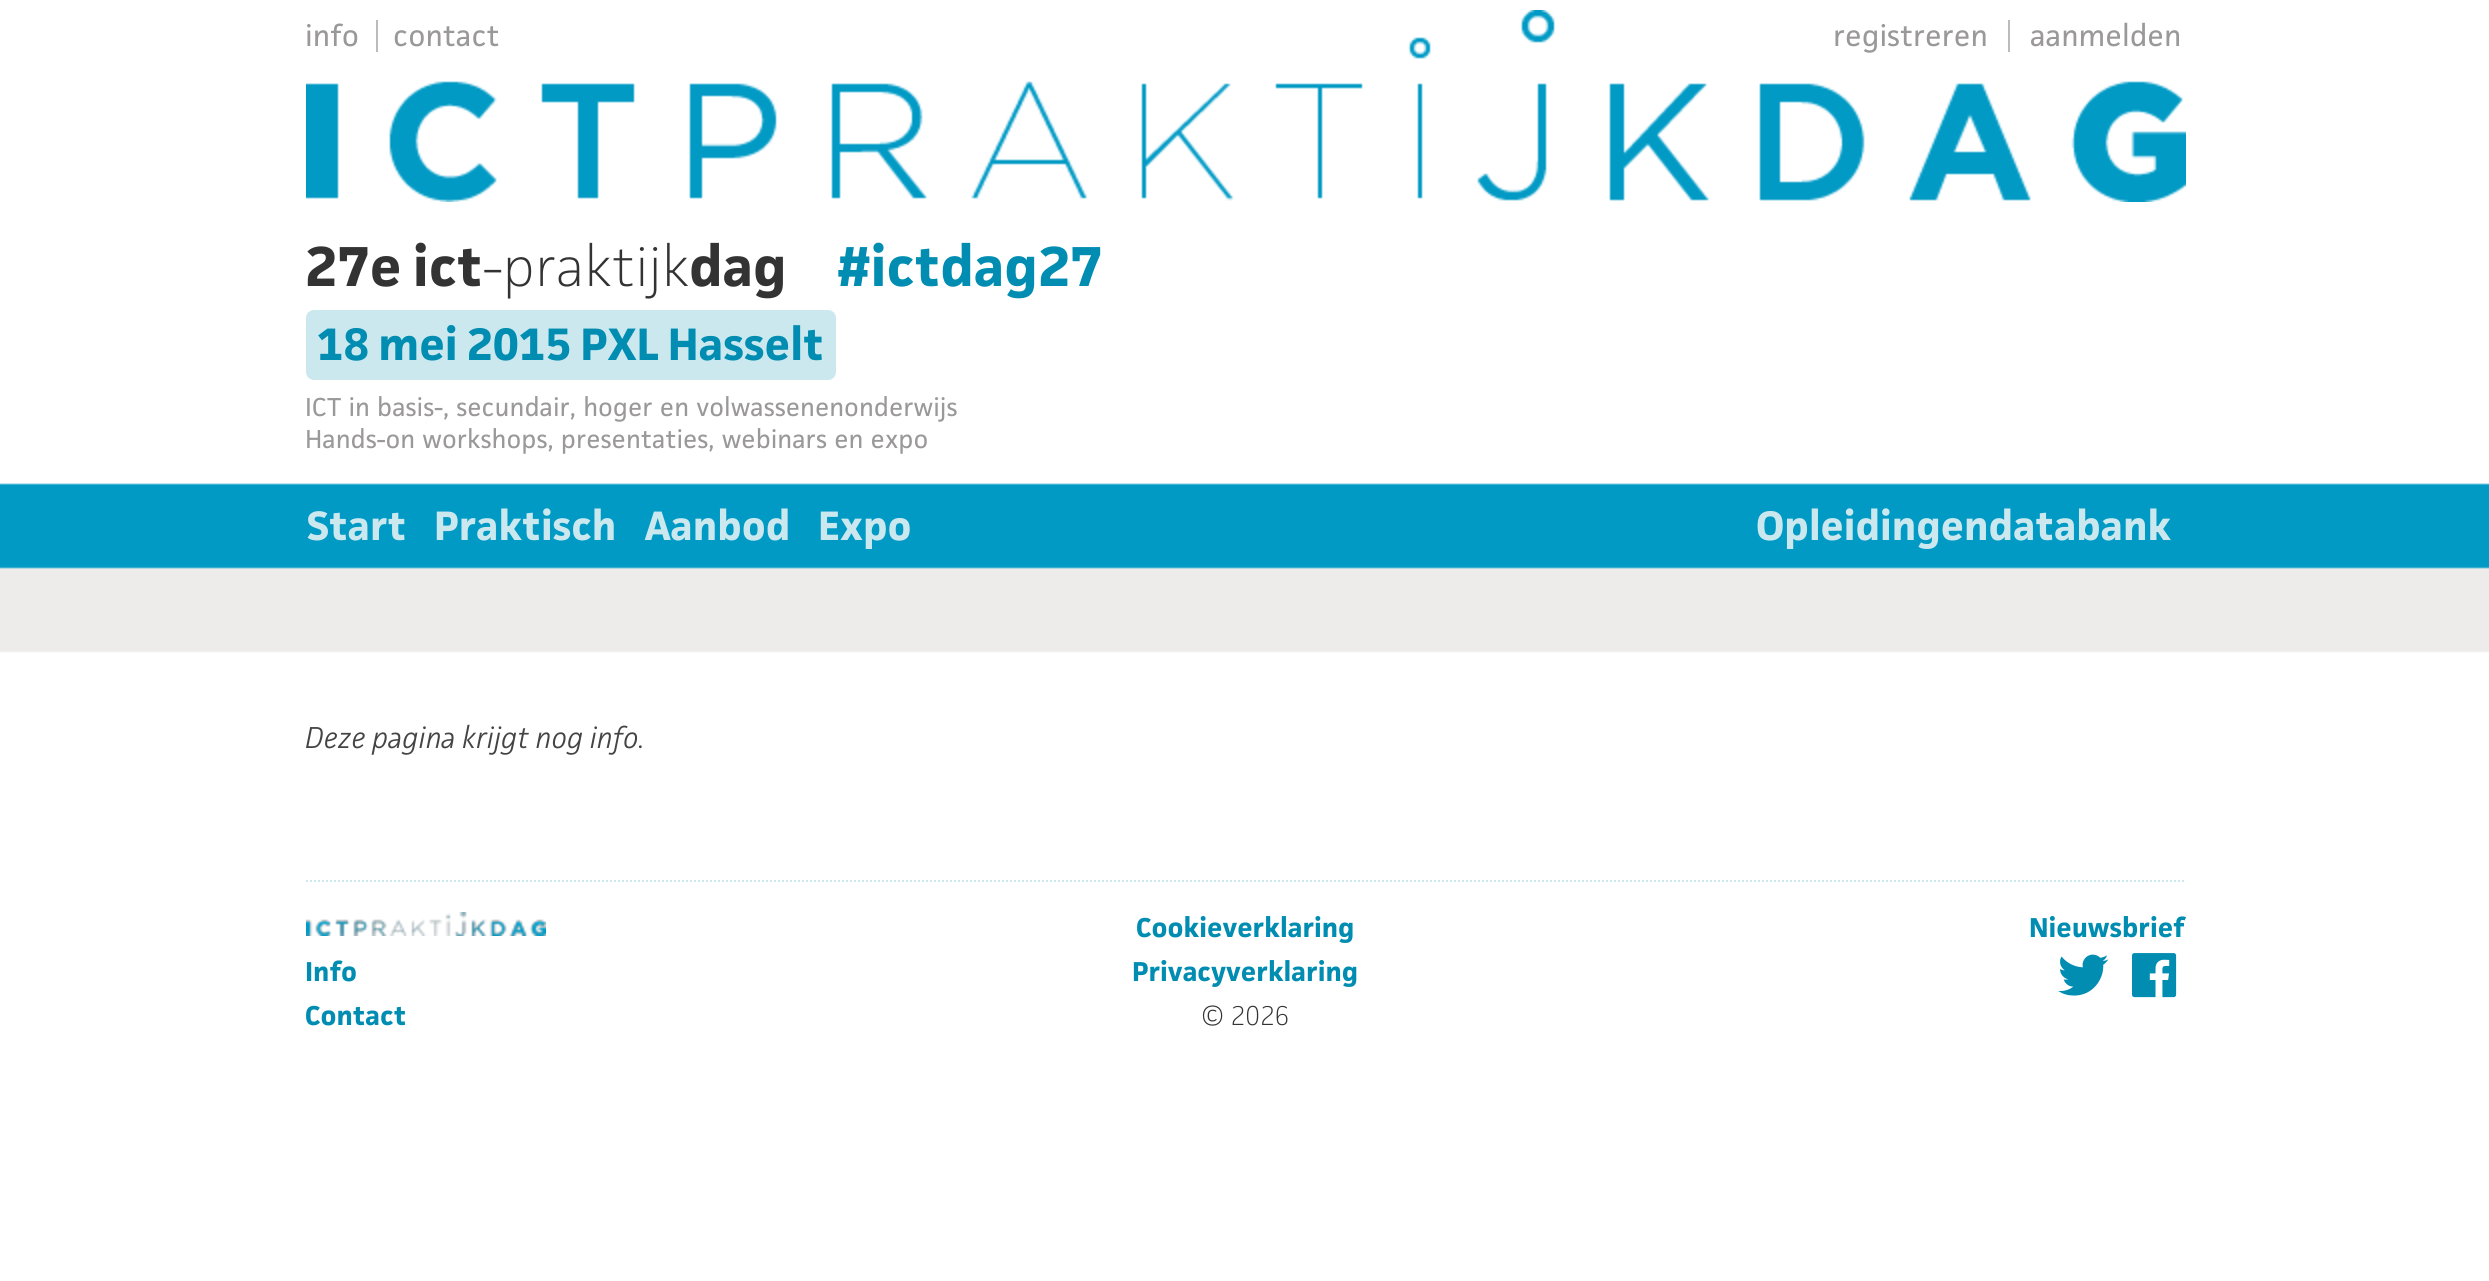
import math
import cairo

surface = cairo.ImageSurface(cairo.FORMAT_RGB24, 2489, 1281)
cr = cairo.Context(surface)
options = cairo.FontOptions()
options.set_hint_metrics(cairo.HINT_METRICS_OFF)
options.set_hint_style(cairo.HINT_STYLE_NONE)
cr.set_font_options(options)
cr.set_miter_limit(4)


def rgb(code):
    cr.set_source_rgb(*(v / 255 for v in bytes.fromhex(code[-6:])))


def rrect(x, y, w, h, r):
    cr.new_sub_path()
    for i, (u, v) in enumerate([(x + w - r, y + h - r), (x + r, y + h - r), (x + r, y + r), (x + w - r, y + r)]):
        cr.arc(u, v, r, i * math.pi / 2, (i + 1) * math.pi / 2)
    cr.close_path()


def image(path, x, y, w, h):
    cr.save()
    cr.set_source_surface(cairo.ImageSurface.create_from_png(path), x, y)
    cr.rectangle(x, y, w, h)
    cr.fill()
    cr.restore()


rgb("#ffffff")
cr.paint()
image("img/1.png", 0, 483, 2489, 170)
image("img/2.png", 306, 10, 1880, 192)
rgb("#bdbbb9")
cr.rectangle(376, 20, 2, 32)
cr.fill()
cr.rectangle(2008, 20, 2, 32)
cr.fill()
rgb("#cce8ef")
rrect(306, 310, 530, 70, 8)
cr.fill()
cr.new_path()
cr.move_to(306, 881)
cr.line_to(2186, 881)
cr.set_dash([2, 2])
cr.stroke()
image("img/3.png", 2058, 954, 51, 42)
image("img/4.png", 2132, 953, 45, 45)
image("img/5.png", 306, 912, 240, 24)
cr.select_font_face("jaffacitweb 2")
cr.set_font_size(28)
rgb("#9a9898")
for x, y, s in [
    (305, 46, "info"),
    (393, 46, "contact"),
    (1833, 46, "registreren"),
    (2030, 46, "aanmelden"),
]:
    cr.move_to(x, y)
    cr.show_text(s)
cr.select_font_face("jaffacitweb", cairo.FONT_SLANT_NORMAL, cairo.FONT_WEIGHT_BOLD)
cr.set_font_size(52)
rgb("#333333")
cr.move_to(305, 286)
cr.show_text("27e ict")
cr.select_font_face("jaffacitweb")
cr.move_to(483, 286)
cr.show_text("-praktijk")
cr.select_font_face("jaffacitweb", cairo.FONT_SLANT_NORMAL, cairo.FONT_WEIGHT_BOLD)
cr.move_to(689, 286)
cr.show_text("dag")
rgb("#008db1")
cr.move_to(838, 286)
cr.show_text("#ictdag27")
cr.set_font_size(42)
cr.move_to(317, 360)
cr.show_text("18 mei 2015 PXL Hasselt")
cr.select_font_face("jaffacitweb 2")
cr.set_font_size(24)
rgb("#9a9898")
cr.move_to(305, 416)
cr.show_text("ICT in basis-, secundair, hoger en volwassenenonderwijs")
cr.move_to(305, 448)
cr.show_text("Hands-on workshops, presentaties, webinars en expo")
cr.select_font_face("jaffacitweb", cairo.FONT_SLANT_NORMAL, cairo.FONT_WEIGHT_BOLD)
cr.set_font_size(38)
rgb("#cce8ef")
for x, y, s in [
    (307, 540, "Start"),
    (434, 540, "Praktisch"),
    (645, 540, "Aanbod"),
    (818, 540, "Expo"),
    (1756, 540, "Opleidingendatabank"),
]:
    cr.move_to(x, y)
    cr.show_text(s)
cr.select_font_face("jaffacitweb", cairo.FONT_SLANT_ITALIC)
cr.set_font_size(28)
rgb("#444444")
cr.move_to(305, 748)
cr.show_text("Deze pagina krijgt nog info.")
cr.select_font_face("jaffacitweb", cairo.FONT_SLANT_NORMAL, cairo.FONT_WEIGHT_BOLD)
cr.set_font_size(25.25)
rgb("#008db1")
cr.move_to(1136, 937)
cr.show_text("Cookieverklaring")
cr.move_to(1132, 981)
cr.show_text("Privacyverklaring")
cr.select_font_face("jaffacitweb")
rgb("#333333")
cr.move_to(1201, 1025)
cr.show_text("© 2026")
cr.select_font_face("jaffacitweb", cairo.FONT_SLANT_NORMAL, cairo.FONT_WEIGHT_BOLD)
rgb("#008db1")
for x, y, s in [
    (2029, 937, "Nieuwsbrief"),
    (305, 981, "Info"),
    (305, 1025, "Contact"),
]:
    cr.move_to(x, y)
    cr.show_text(s)
surface.write_to_png("page.png")
